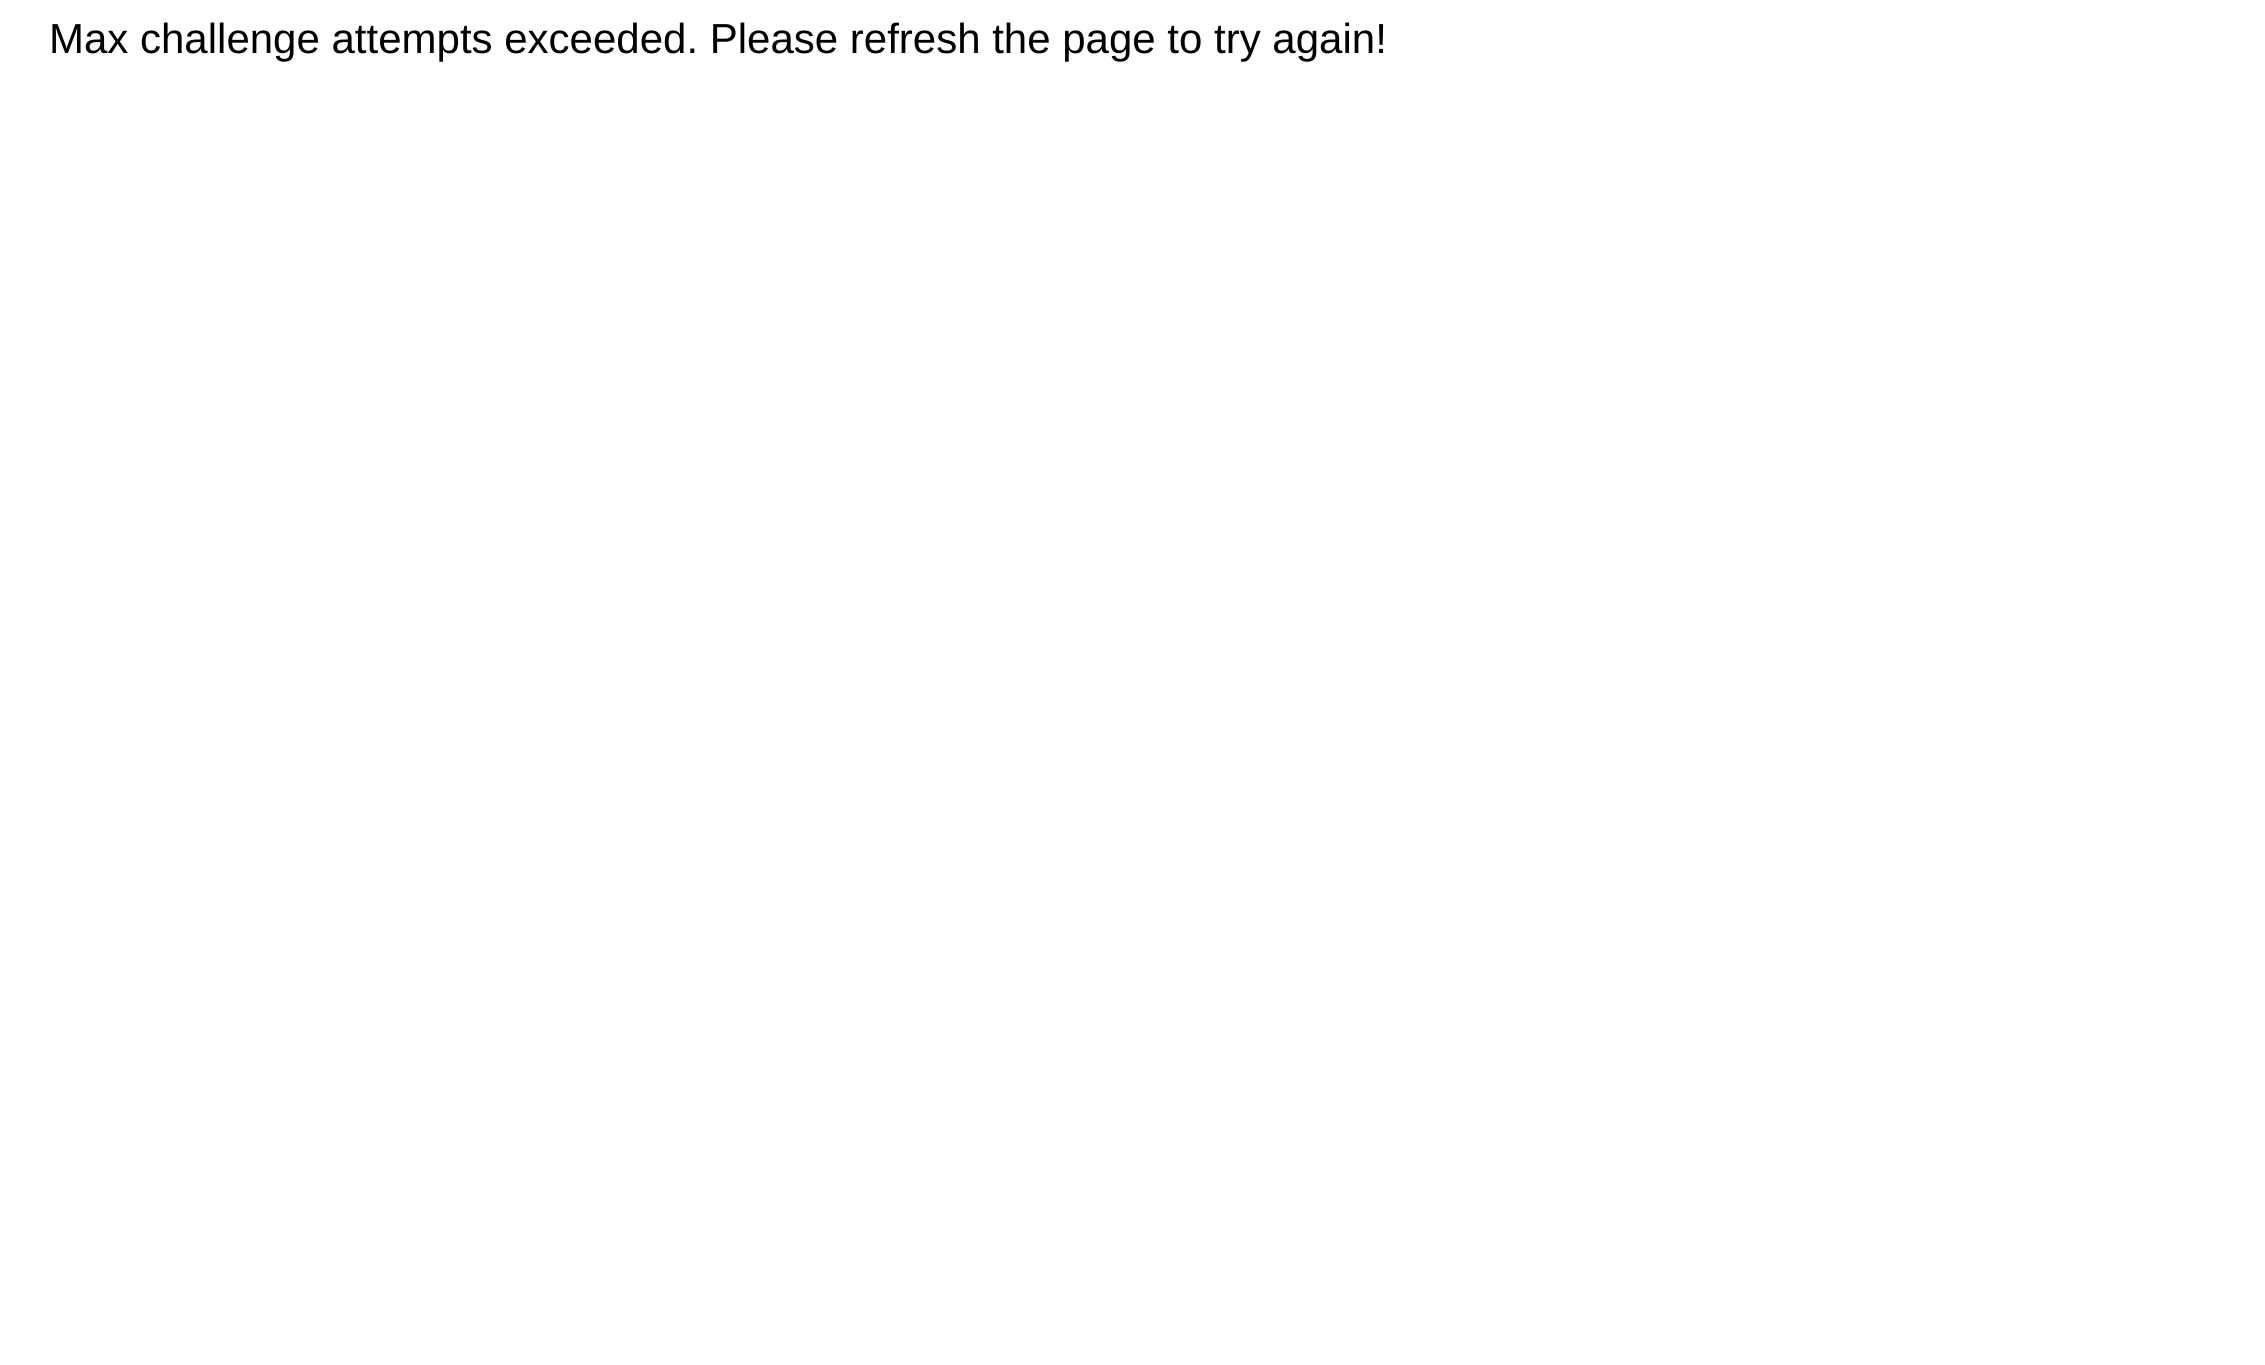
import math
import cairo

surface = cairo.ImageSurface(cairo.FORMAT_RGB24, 2265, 1365)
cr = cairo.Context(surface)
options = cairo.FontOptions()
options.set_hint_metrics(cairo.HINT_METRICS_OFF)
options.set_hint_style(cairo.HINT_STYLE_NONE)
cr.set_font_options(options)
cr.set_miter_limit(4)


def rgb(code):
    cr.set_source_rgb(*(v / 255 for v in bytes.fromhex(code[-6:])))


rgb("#ffffff")
cr.paint()
cr.select_font_face("Liberation Sans")
cr.set_font_size(42)
rgb("#000000")
cr.move_to(49, 53)
cr.show_text("Max challenge attempts exceeded. Please refresh the page to try again!")
surface.write_to_png("page.png")
